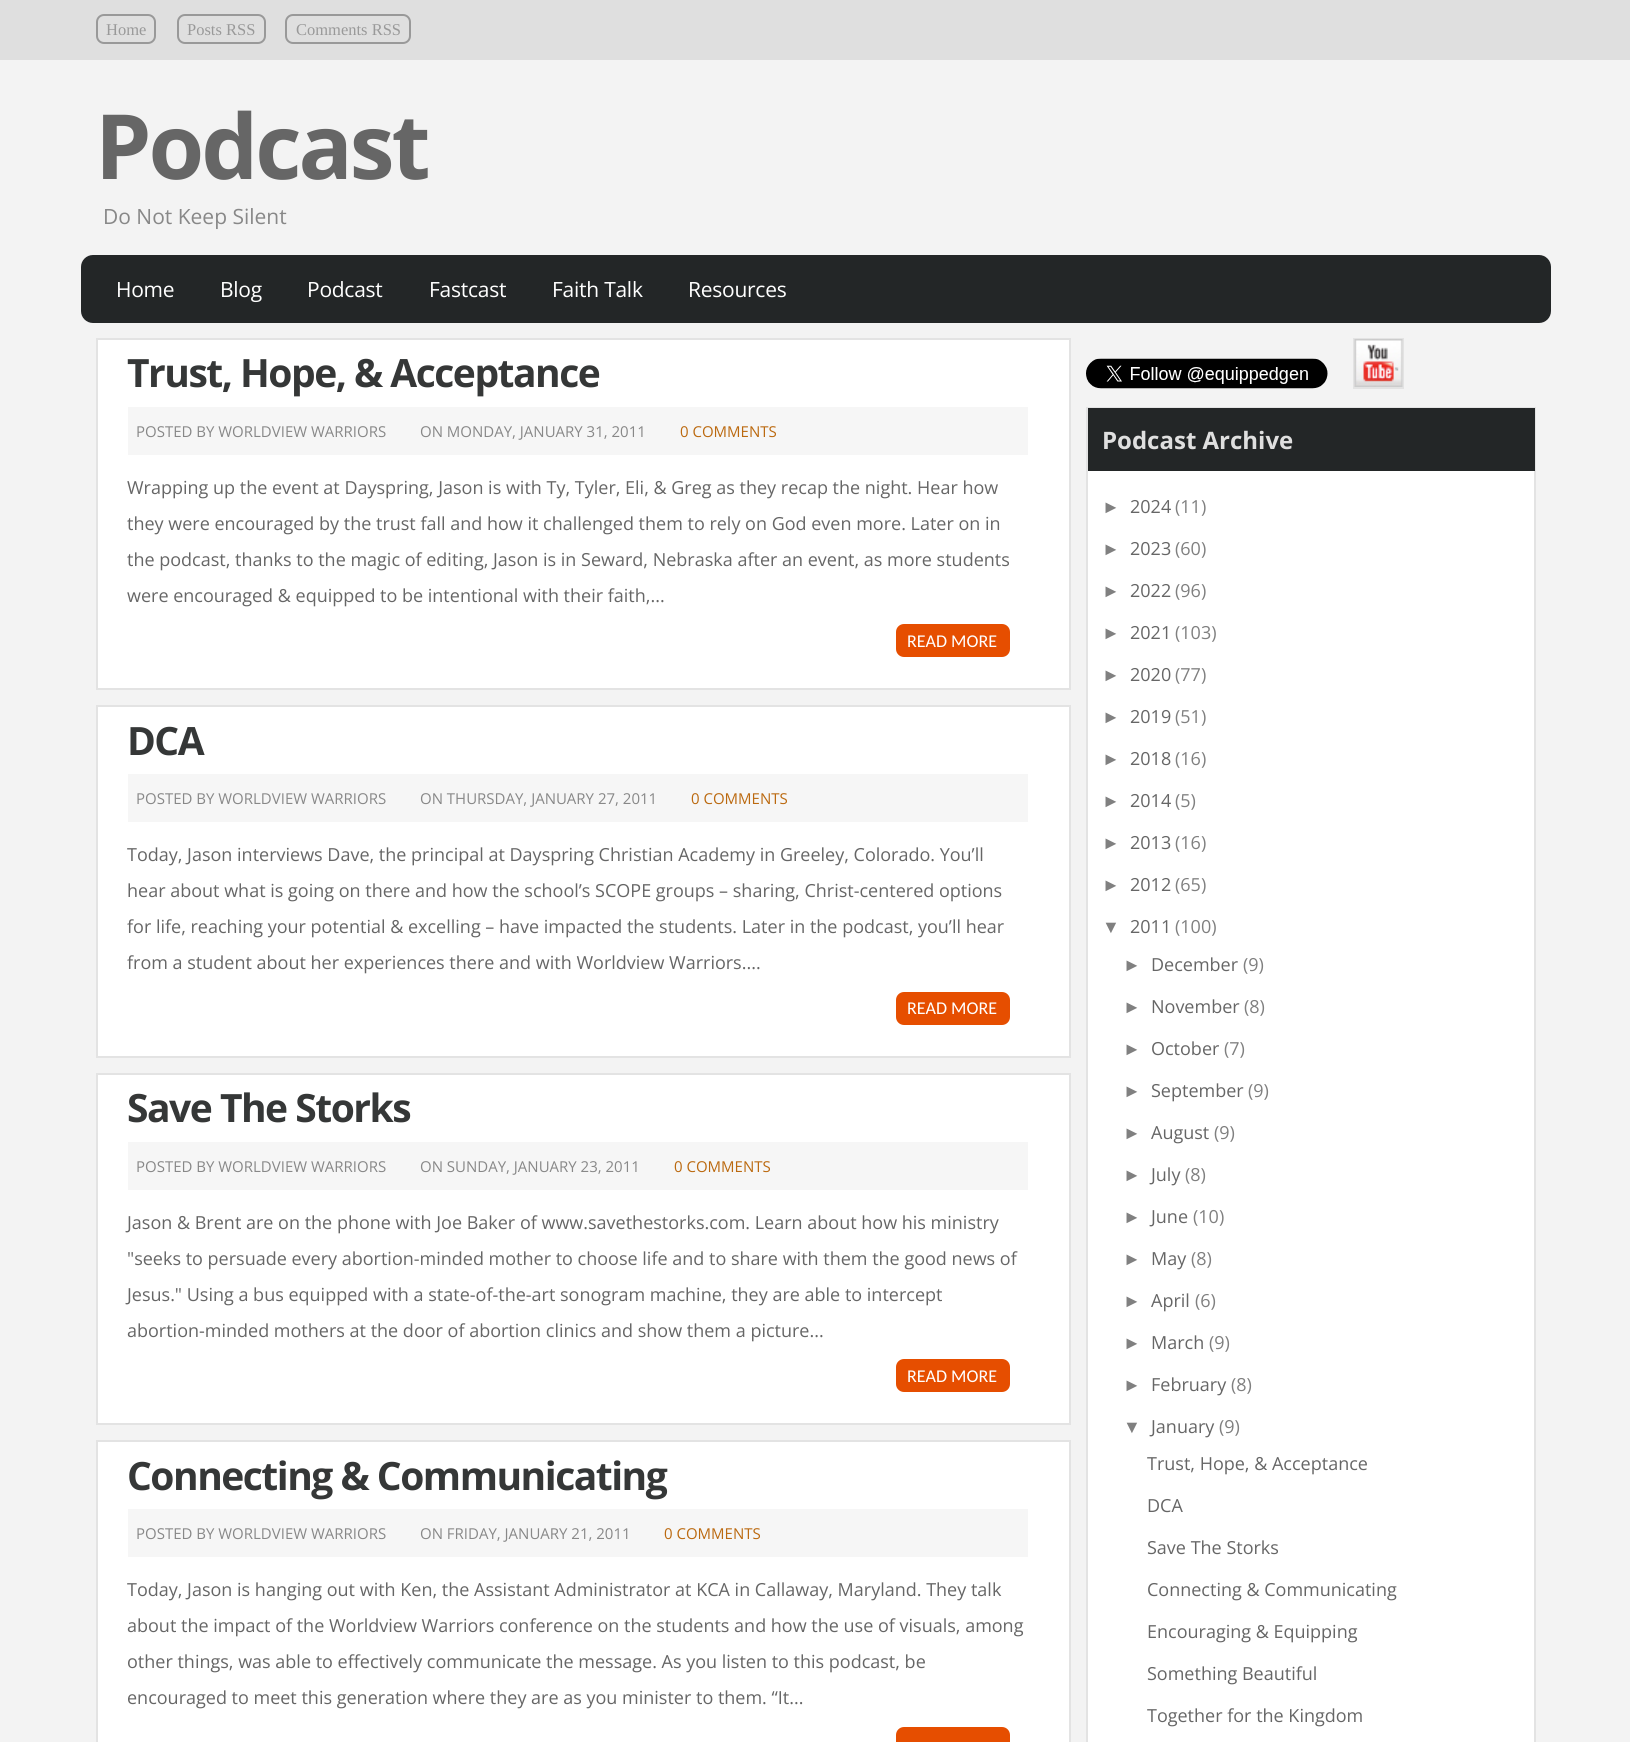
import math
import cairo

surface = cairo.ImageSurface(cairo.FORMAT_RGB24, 1630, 1742)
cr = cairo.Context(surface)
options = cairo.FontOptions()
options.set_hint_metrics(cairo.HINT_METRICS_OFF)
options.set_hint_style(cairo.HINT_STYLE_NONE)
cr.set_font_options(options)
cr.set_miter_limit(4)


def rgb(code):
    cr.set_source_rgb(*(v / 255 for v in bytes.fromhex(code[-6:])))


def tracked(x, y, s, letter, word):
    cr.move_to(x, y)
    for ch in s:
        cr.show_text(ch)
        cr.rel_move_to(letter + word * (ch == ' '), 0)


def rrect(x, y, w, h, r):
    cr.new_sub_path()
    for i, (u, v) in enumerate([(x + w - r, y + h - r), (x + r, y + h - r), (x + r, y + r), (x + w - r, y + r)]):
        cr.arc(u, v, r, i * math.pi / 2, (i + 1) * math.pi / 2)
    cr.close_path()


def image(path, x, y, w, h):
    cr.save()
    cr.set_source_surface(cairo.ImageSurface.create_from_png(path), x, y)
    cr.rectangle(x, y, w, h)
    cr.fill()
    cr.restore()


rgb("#f3f3f3")
cr.paint()
rgb("#dfdfdf")
cr.rectangle(0, 0, 1630, 60)
cr.fill()
rrect(97, 15, 58, 28, 7)
rgb("#999999")
cr.stroke()
rrect(178, 15, 87, 28, 7)
cr.stroke()
rrect(286, 15, 124, 28, 7)
cr.stroke()
rgb("#232627")
rrect(81, 255, 1470, 68, 12)
cr.fill()
rgb("#ffffff")
cr.rectangle(97, 339, 973, 350)
cr.fill_preserve()
rgb("#e3e3e3")
cr.stroke()
rgb("#f6f6f6")
cr.rectangle(128, 407, 900, 48)
cr.fill()
rgb("#e64e00")
rrect(896, 624, 114, 33, 8)
cr.fill()
rgb("#ffffff")
cr.rectangle(97, 706, 973, 351)
cr.fill_preserve()
rgb("#e3e3e3")
cr.stroke()
rgb("#f6f6f6")
cr.rectangle(128, 774, 900, 48)
cr.fill()
rgb("#e64e00")
rrect(896, 992, 114, 33, 8)
cr.fill()
rgb("#ffffff")
cr.rectangle(97, 1074, 973, 350)
cr.fill_preserve()
rgb("#e3e3e3")
cr.stroke()
rgb("#f6f6f6")
cr.rectangle(128, 1142, 900, 48)
cr.fill()
rgb("#e64e00")
rrect(896, 1359, 114, 33, 8)
cr.fill()
rgb("#ffffff")
cr.rectangle(97, 1441, 973, 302)
cr.fill_preserve()
rgb("#e3e3e3")
cr.stroke()
rgb("#f6f6f6")
cr.rectangle(128, 1509, 900, 48)
cr.fill()
rgb("#e64e00")
rrect(896, 1727, 114, 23, 8)
cr.fill()
cr.rectangle(1354, 339, 49, 49)
rgb("#e3e3e3")
cr.stroke()
image("img/1.png", 1086, 358, 242, 31)
image("img/2.png", 1354, 339, 49, 48)
rgb("#ffffff")
cr.rectangle(1088, 471, 446, 1271)
cr.fill()
cr.rectangle(1087, 408, 448, 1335)
rgb("#e3e3e3")
cr.stroke()
rgb("#232627")
cr.rectangle(1088, 408, 447, 63)
cr.fill()
cr.select_font_face("Liberation Serif")
cr.set_font_size(16.5)
rgb("#999999")
for x, y, s in [
    (106, 35, "Home"),
    (187, 35, "Posts RSS"),
    (296, 35, "Comments RSS"),
]:
    cr.move_to(x, y)
    cr.show_text(s)
cr.select_font_face("Open Sans", cairo.FONT_SLANT_NORMAL, cairo.FONT_WEIGHT_BOLD)
cr.set_font_size(90)
rgb("#666666")
tracked(95, 179, "Podcast", -3, 0)
cr.select_font_face("Open Sans")
cr.set_font_size(21)
rgb("#888888")
cr.move_to(103, 224)
cr.show_text("Do Not Keep Silent")
rgb("#ffffff")
for x, y, s in [
    (116, 297, "Home"),
    (220, 297, "Blog"),
    (307, 297, "Podcast"),
    (429, 297, "Fastcast"),
    (552, 297, "Faith Talk"),
    (688, 297, "Resources"),
]:
    tracked(x, y, s, -0.25, 0)
cr.select_font_face("Open Sans", cairo.FONT_SLANT_NORMAL, cairo.FONT_WEIGHT_BOLD)
cr.set_font_size(39)
rgb("#353737")
tracked(127, 387, "Trust, Hope, & Acceptance", -1.5, 0)
cr.select_font_face("Open Sans")
cr.set_font_size(15)
rgb("#888888")
cr.move_to(136, 437)
cr.show_text("POSTED BY WORLDVIEW WARRIORS")
cr.move_to(420, 437)
cr.show_text("ON MONDAY, JANUARY 31, 2011")
rgb("#bb690f")
cr.move_to(680, 437)
cr.show_text("0 COMMENTS")
cr.set_font_size(18)
rgb("#666666")
for x, y, s in [
    (127, 494, "Wrapping up the event at Dayspring, Jason is with Ty, Tyler, Eli, & Greg as they recap the night. Hear how"),
    (127, 530, "they were encouraged by the trust fall and how it challenged them to rely on God even more. Later on in"),
    (127, 566, "the podcast, thanks to the magic of editing, Jason is in Seward, Nebraska after an event, as more students"),
    (127, 602, "were encouraged & equipped to be intentional with their faith,..."),
]:
    cr.move_to(x, y)
    cr.show_text(s)
cr.select_font_face("Carlito")
rgb("#ffffff")
cr.move_to(907, 647)
cr.show_text("READ MORE")
cr.select_font_face("Open Sans", cairo.FONT_SLANT_NORMAL, cairo.FONT_WEIGHT_BOLD)
cr.set_font_size(39)
rgb("#353737")
tracked(127, 755, "DCA", -1.5, 0)
cr.select_font_face("Open Sans")
cr.set_font_size(15)
rgb("#888888")
cr.move_to(136, 804)
cr.show_text("POSTED BY WORLDVIEW WARRIORS")
cr.move_to(420, 804)
cr.show_text("ON THURSDAY, JANUARY 27, 2011")
rgb("#bb690f")
cr.move_to(691, 804)
cr.show_text("0 COMMENTS")
cr.set_font_size(18)
rgb("#666666")
for x, y, s in [
    (127, 861, "Today, Jason interviews Dave, the principal at Dayspring Christian Academy in Greeley, Colorado. You’ll"),
    (127, 897, "hear about what is going on there and how the school’s SCOPE groups – sharing, Christ-centered options"),
    (127, 933, "for life, reaching your potential & excelling – have impacted the students. Later in the podcast, you’ll hear"),
    (127, 969, "from a student about her experiences there and with Worldview Warriors...."),
]:
    cr.move_to(x, y)
    cr.show_text(s)
cr.select_font_face("Carlito")
rgb("#ffffff")
cr.move_to(907, 1014)
cr.show_text("READ MORE")
cr.select_font_face("Open Sans", cairo.FONT_SLANT_NORMAL, cairo.FONT_WEIGHT_BOLD)
cr.set_font_size(39)
rgb("#353737")
tracked(127, 1122, "Save The Storks", -1.5, 0)
cr.select_font_face("Open Sans")
cr.set_font_size(15)
rgb("#888888")
cr.move_to(136, 1172)
cr.show_text("POSTED BY WORLDVIEW WARRIORS")
cr.move_to(420, 1172)
cr.show_text("ON SUNDAY, JANUARY 23, 2011")
rgb("#bb690f")
cr.move_to(674, 1172)
cr.show_text("0 COMMENTS")
cr.set_font_size(18)
rgb("#666666")
for x, y, s in [
    (127, 1229, "Jason & Brent are on the phone with Joe Baker of www.savethestorks.com. Learn about how his ministry"),
    (127, 1265, "\"seeks to persuade every abortion-minded mother to choose life and to share with them the good news of"),
    (127, 1301, "Jesus.\" Using a bus equipped with a state-of-the-art sonogram machine, they are able to intercept"),
    (127, 1337, "abortion-minded mothers at the door of abortion clinics and show them a picture..."),
]:
    cr.move_to(x, y)
    cr.show_text(s)
cr.select_font_face("Carlito")
rgb("#ffffff")
cr.move_to(907, 1382)
cr.show_text("READ MORE")
cr.select_font_face("Open Sans", cairo.FONT_SLANT_NORMAL, cairo.FONT_WEIGHT_BOLD)
cr.set_font_size(39)
rgb("#353737")
tracked(127, 1490, "Connecting & Communicating", -1.5, 0)
cr.select_font_face("Open Sans")
cr.set_font_size(15)
rgb("#888888")
cr.move_to(136, 1539)
cr.show_text("POSTED BY WORLDVIEW WARRIORS")
cr.move_to(420, 1539)
cr.show_text("ON FRIDAY, JANUARY 21, 2011")
rgb("#bb690f")
cr.move_to(664, 1539)
cr.show_text("0 COMMENTS")
cr.set_font_size(18)
rgb("#666666")
for x, y, s in [
    (127, 1596, "Today, Jason is hanging out with Ken, the Assistant Administrator at KCA in Callaway, Maryland. They talk"),
    (127, 1632, "about the impact of the Worldview Warriors conference on the students and how the use of visuals, among"),
    (127, 1668, "other things, was able to effectively communicate the message. As you listen to this podcast, be"),
    (127, 1704, "encouraged to meet this generation where they are as you minister to them. “It..."),
]:
    cr.move_to(x, y)
    cr.show_text(s)
cr.select_font_face("Open Sans", cairo.FONT_SLANT_NORMAL, cairo.FONT_WEIGHT_BOLD)
cr.set_font_size(24)
rgb("#dfdfdf")
cr.move_to(1102, 449)
cr.show_text("Podcast Archive")
cr.select_font_face("Liberation Sans")
cr.set_font_size(18)
rgb("#808080")
cr.move_to(1102, 513)
cr.show_text("►")
cr.select_font_face("Open Sans")
rgb("#666666")
cr.move_to(1130, 513)
cr.show_text("2024")
rgb("#808080")
cr.move_to(1175, 513)
cr.show_text("(11)")
cr.select_font_face("Liberation Sans")
cr.move_to(1102, 555)
cr.show_text("►")
cr.select_font_face("Open Sans")
rgb("#666666")
cr.move_to(1130, 555)
cr.show_text("2023")
rgb("#808080")
cr.move_to(1175, 555)
cr.show_text("(60)")
cr.select_font_face("Liberation Sans")
cr.move_to(1102, 597)
cr.show_text("►")
cr.select_font_face("Open Sans")
rgb("#666666")
cr.move_to(1130, 597)
cr.show_text("2022")
rgb("#808080")
cr.move_to(1175, 597)
cr.show_text("(96)")
cr.select_font_face("Liberation Sans")
cr.move_to(1102, 639)
cr.show_text("►")
cr.select_font_face("Open Sans")
rgb("#666666")
cr.move_to(1130, 639)
cr.show_text("2021")
rgb("#808080")
cr.move_to(1175, 639)
cr.show_text("(103)")
cr.select_font_face("Liberation Sans")
cr.move_to(1102, 681)
cr.show_text("►")
cr.select_font_face("Open Sans")
rgb("#666666")
cr.move_to(1130, 681)
cr.show_text("2020")
rgb("#808080")
cr.move_to(1175, 681)
cr.show_text("(77)")
cr.select_font_face("Liberation Sans")
cr.move_to(1102, 723)
cr.show_text("►")
cr.select_font_face("Open Sans")
rgb("#666666")
cr.move_to(1130, 723)
cr.show_text("2019")
rgb("#808080")
cr.move_to(1175, 723)
cr.show_text("(51)")
cr.select_font_face("Liberation Sans")
cr.move_to(1102, 765)
cr.show_text("►")
cr.select_font_face("Open Sans")
rgb("#666666")
cr.move_to(1130, 765)
cr.show_text("2018")
rgb("#808080")
cr.move_to(1175, 765)
cr.show_text("(16)")
cr.select_font_face("Liberation Sans")
cr.move_to(1102, 807)
cr.show_text("►")
cr.select_font_face("Open Sans")
rgb("#666666")
cr.move_to(1130, 807)
cr.show_text("2014")
rgb("#808080")
cr.move_to(1175, 807)
cr.show_text("(5)")
cr.select_font_face("Liberation Sans")
cr.move_to(1102, 849)
cr.show_text("►")
cr.select_font_face("Open Sans")
rgb("#666666")
cr.move_to(1130, 849)
cr.show_text("2013")
rgb("#808080")
cr.move_to(1175, 849)
cr.show_text("(16)")
cr.select_font_face("Liberation Sans")
cr.move_to(1102, 891)
cr.show_text("►")
cr.select_font_face("Open Sans")
rgb("#666666")
cr.move_to(1130, 891)
cr.show_text("2012")
rgb("#808080")
cr.move_to(1175, 891)
cr.show_text("(65)")
cr.select_font_face("Liberation Sans")
cr.move_to(1102, 933)
cr.show_text("▼")
cr.select_font_face("Open Sans")
rgb("#666666")
cr.move_to(1130, 933)
cr.show_text("2011")
rgb("#808080")
cr.move_to(1175, 933)
cr.show_text("(100)")
cr.select_font_face("Liberation Sans")
cr.move_to(1123, 971)
cr.show_text("►")
cr.select_font_face("Open Sans")
rgb("#666666")
cr.move_to(1151, 971)
cr.show_text("December")
rgb("#808080")
cr.move_to(1243, 971)
cr.show_text("(9)")
cr.select_font_face("Liberation Sans")
cr.move_to(1123, 1013)
cr.show_text("►")
cr.select_font_face("Open Sans")
rgb("#666666")
cr.move_to(1151, 1013)
cr.show_text("November")
rgb("#808080")
cr.move_to(1244, 1013)
cr.show_text("(8)")
cr.select_font_face("Liberation Sans")
cr.move_to(1123, 1055)
cr.show_text("►")
cr.select_font_face("Open Sans")
rgb("#666666")
cr.move_to(1151, 1055)
cr.show_text("October")
rgb("#808080")
cr.move_to(1224, 1055)
cr.show_text("(7)")
cr.select_font_face("Liberation Sans")
cr.move_to(1123, 1097)
cr.show_text("►")
cr.select_font_face("Open Sans")
rgb("#666666")
cr.move_to(1151, 1097)
cr.show_text("September")
rgb("#808080")
cr.move_to(1248, 1097)
cr.show_text("(9)")
cr.select_font_face("Liberation Sans")
cr.move_to(1123, 1139)
cr.show_text("►")
cr.select_font_face("Open Sans")
rgb("#666666")
cr.move_to(1151, 1139)
cr.show_text("August")
rgb("#808080")
cr.move_to(1214, 1139)
cr.show_text("(9)")
cr.select_font_face("Liberation Sans")
cr.move_to(1123, 1181)
cr.show_text("►")
cr.select_font_face("Open Sans")
rgb("#666666")
cr.move_to(1151, 1181)
cr.show_text("July")
rgb("#808080")
cr.move_to(1185, 1181)
cr.show_text("(8)")
cr.select_font_face("Liberation Sans")
cr.move_to(1123, 1223)
cr.show_text("►")
cr.select_font_face("Open Sans")
rgb("#666666")
cr.move_to(1151, 1223)
cr.show_text("June")
rgb("#808080")
cr.move_to(1193, 1223)
cr.show_text("(10)")
cr.select_font_face("Liberation Sans")
cr.move_to(1123, 1265)
cr.show_text("►")
cr.select_font_face("Open Sans")
rgb("#666666")
cr.move_to(1151, 1265)
cr.show_text("May")
rgb("#808080")
cr.move_to(1191, 1265)
cr.show_text("(8)")
cr.select_font_face("Liberation Sans")
cr.move_to(1123, 1307)
cr.show_text("►")
cr.select_font_face("Open Sans")
rgb("#666666")
cr.move_to(1151, 1307)
cr.show_text("April")
rgb("#808080")
cr.move_to(1195, 1307)
cr.show_text("(6)")
cr.select_font_face("Liberation Sans")
cr.move_to(1123, 1349)
cr.show_text("►")
cr.select_font_face("Open Sans")
rgb("#666666")
cr.move_to(1151, 1349)
cr.show_text("March")
rgb("#808080")
cr.move_to(1209, 1349)
cr.show_text("(9)")
cr.select_font_face("Liberation Sans")
cr.move_to(1123, 1391)
cr.show_text("►")
cr.select_font_face("Open Sans")
rgb("#666666")
cr.move_to(1151, 1391)
cr.show_text("February")
rgb("#808080")
cr.move_to(1231, 1391)
cr.show_text("(8)")
cr.select_font_face("Liberation Sans")
cr.move_to(1123, 1433)
cr.show_text("▼")
cr.select_font_face("Open Sans")
rgb("#666666")
cr.move_to(1151, 1433)
cr.show_text("January")
rgb("#808080")
cr.move_to(1219, 1433)
cr.show_text("(9)")
rgb("#666666")
for x, y, s in [
    (1147, 1470, "Trust, Hope, & Acceptance"),
    (1147, 1512, "DCA"),
    (1147, 1554, "Save The Storks"),
    (1147, 1596, "Connecting & Communicating"),
    (1147, 1638, "Encouraging & Equipping"),
    (1147, 1680, "Something Beautiful"),
    (1147, 1722, "Together for the Kingdom"),
]:
    cr.move_to(x, y)
    cr.show_text(s)
surface.write_to_png("page.png")
